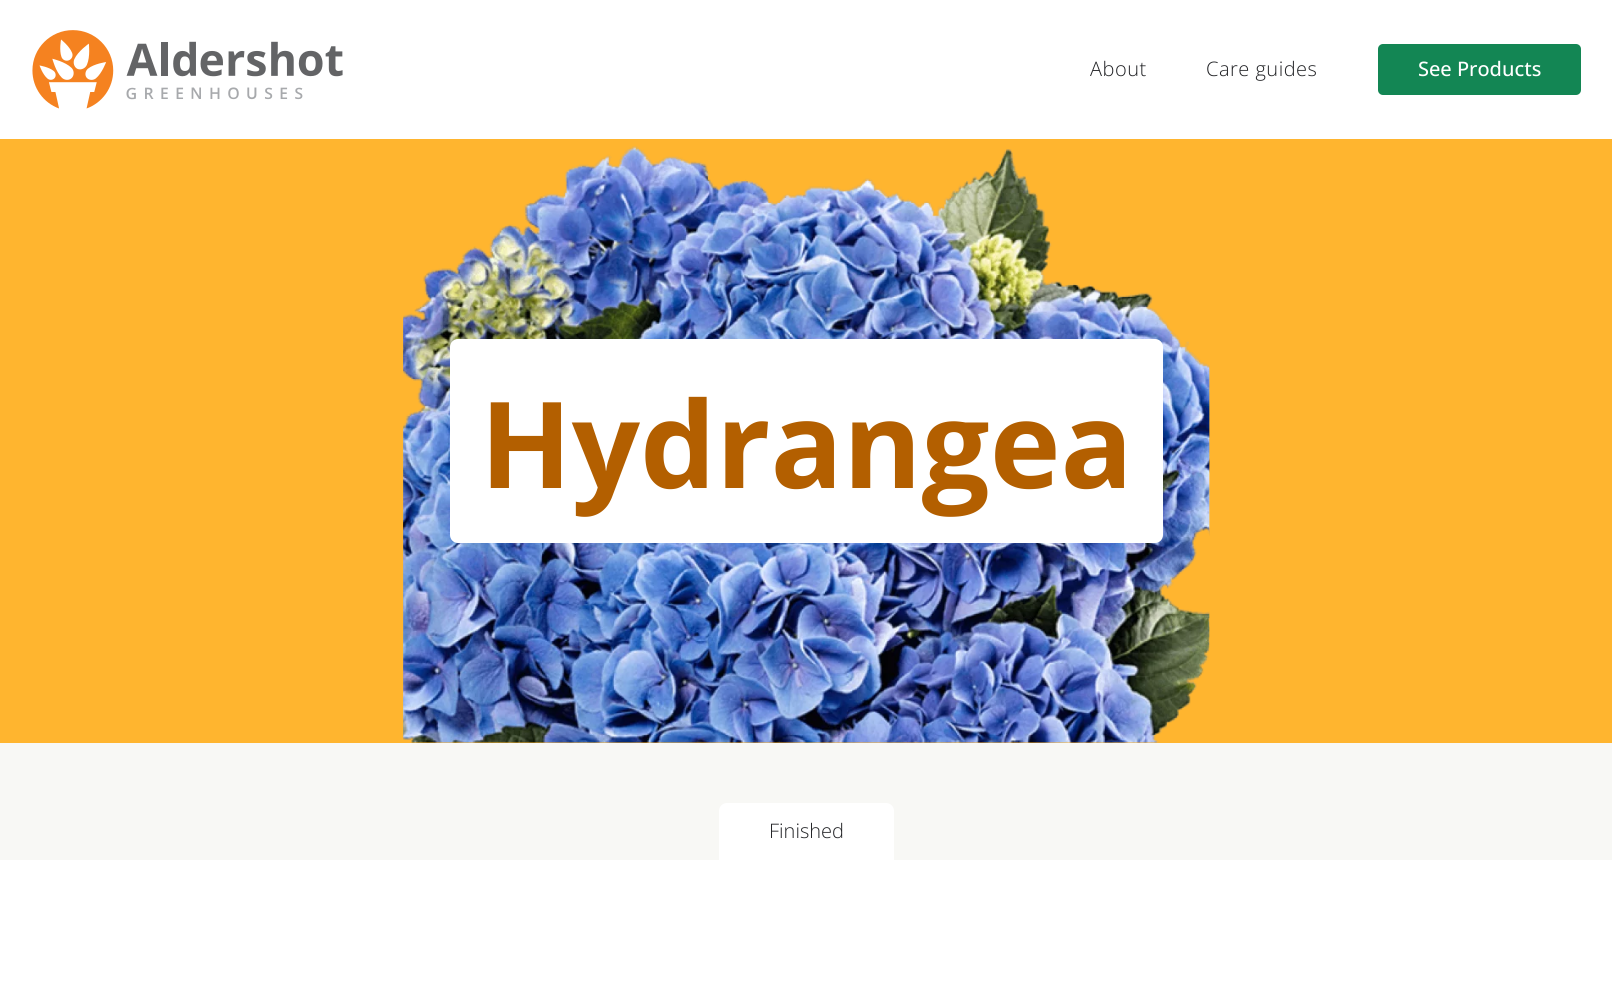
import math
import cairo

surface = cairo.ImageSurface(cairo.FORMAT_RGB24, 1612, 986)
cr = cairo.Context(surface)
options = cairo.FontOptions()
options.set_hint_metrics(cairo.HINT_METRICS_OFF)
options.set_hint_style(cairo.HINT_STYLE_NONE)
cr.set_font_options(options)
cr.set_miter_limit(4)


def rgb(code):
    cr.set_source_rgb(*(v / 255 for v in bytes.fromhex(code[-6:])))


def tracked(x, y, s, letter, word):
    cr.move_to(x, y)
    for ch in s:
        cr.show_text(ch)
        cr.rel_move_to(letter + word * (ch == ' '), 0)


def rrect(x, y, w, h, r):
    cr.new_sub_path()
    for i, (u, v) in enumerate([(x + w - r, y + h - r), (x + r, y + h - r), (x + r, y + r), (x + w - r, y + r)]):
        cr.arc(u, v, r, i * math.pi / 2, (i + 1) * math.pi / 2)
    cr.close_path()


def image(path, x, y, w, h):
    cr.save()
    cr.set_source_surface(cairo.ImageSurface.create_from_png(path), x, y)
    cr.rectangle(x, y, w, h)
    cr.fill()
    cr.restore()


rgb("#ffffff")
cr.paint()
image("img/1.png", 32, 30, 311, 79)
rgb("#138654")
rrect(1378, 44, 203, 51, 5)
cr.fill()
rgb("#ffb52f")
cr.rectangle(0, 139, 1612, 604)
cr.fill()
image("img/2.png", 403, 146, 807, 597)
rgb("#ffffff")
rrect(450, 339, 713, 204, 8)
cr.fill()
rgb("#f8f8f5")
cr.rectangle(0, 743, 1612, 117)
cr.fill()
rgb("#ffffff")
cr.new_path()
cr.move_to(727, 803)
cr.line_to(886, 803)
cr.curve_to(890.5, 803, 894, 806.5, 894, 811)
cr.line_to(894, 860)
cr.line_to(719, 860)
cr.line_to(719, 811)
cr.curve_to(719, 806.5, 722.5, 803, 727, 803)
cr.close_path()
cr.fill()
cr.select_font_face("Open Sans Light")
cr.set_font_size(20)
rgb("#222326")
tracked(1090, 76, "About", 0.5, 0)
tracked(1206, 76, "Care guides", 0.5, 0)
cr.select_font_face("Open Sans Medium")
rgb("#ffffff")
cr.move_to(1418, 76)
cr.show_text("See Products")
cr.select_font_face("Open Sans", cairo.FONT_SLANT_NORMAL, cairo.FONT_WEIGHT_BOLD)
cr.set_font_size(120)
rgb("#b35f00")
cr.move_to(480, 488)
cr.show_text("Hydrangea")
cr.select_font_face("Open Sans Light")
cr.set_font_size(20)
rgb("#222326")
cr.move_to(769, 838)
cr.show_text("Finished")
surface.write_to_png("page.png")
